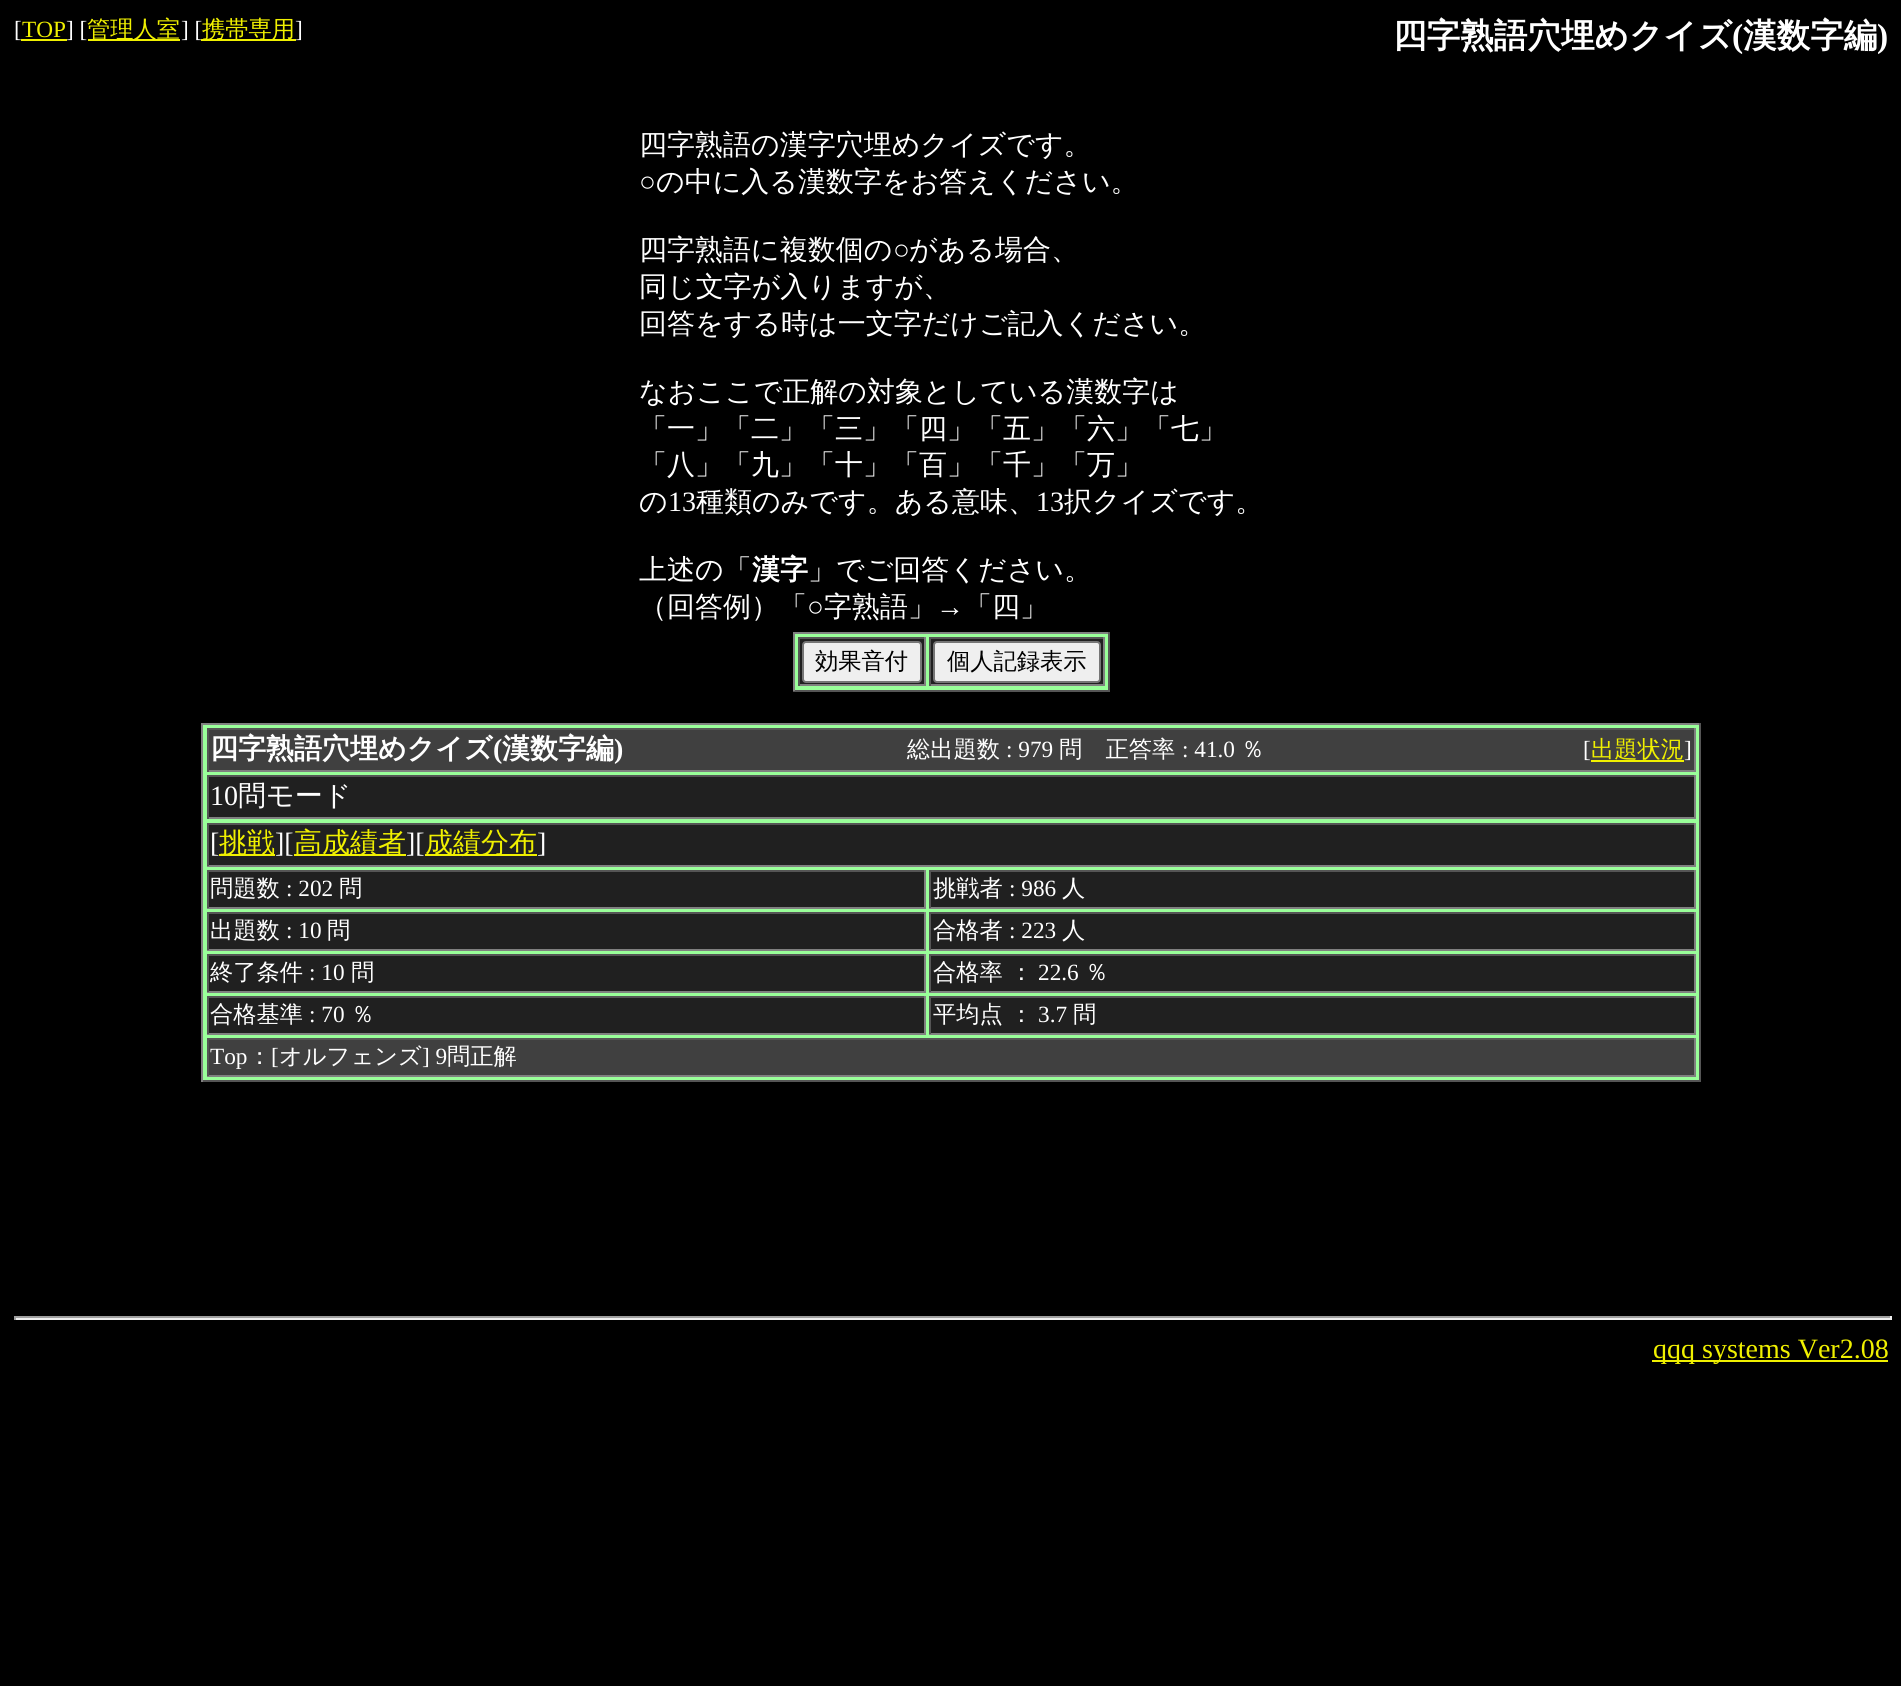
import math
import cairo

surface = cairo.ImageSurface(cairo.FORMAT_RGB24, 1901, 1686)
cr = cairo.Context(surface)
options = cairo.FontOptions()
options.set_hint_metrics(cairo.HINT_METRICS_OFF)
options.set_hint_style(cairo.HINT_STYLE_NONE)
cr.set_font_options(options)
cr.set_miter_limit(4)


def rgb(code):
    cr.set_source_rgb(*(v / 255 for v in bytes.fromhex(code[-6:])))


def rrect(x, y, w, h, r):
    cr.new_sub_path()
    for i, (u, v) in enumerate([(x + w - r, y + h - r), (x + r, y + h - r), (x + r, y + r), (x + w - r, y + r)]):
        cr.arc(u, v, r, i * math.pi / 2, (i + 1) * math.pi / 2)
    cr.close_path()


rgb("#000000")
cr.paint()
for x, y, w, h, color in [
    (21, 39, 46, 2, "#f0f000"),
    (88, 39, 92, 2, "#f0f000"),
    (795, 634, 313, 56, "#99ff99"),
    (793, 632, 317, 2, "#808080"),
    (1108, 632, 2, 59, "#555555"),
    (793, 690, 317, 2, "#555555"),
    (793, 632, 2, 59, "#808080"),
    (800, 639, 124, 45, "#202020"),
    (798, 637, 128, 2, "#555555"),
    (924, 637, 2, 49, "#808080"),
    (798, 684, 128, 2, "#808080"),
    (798, 637, 2, 49, "#555555"),
]:
    rgb(color)
    cr.rectangle(x, y, w, h)
    cr.fill()
rgb("#efefef")
rrect(803, 642, 118, 40, 3)
cr.fill_preserve()
rgb("#767676")
cr.stroke()
for x, y, w, h, color in [
    (931, 639, 172, 45, "#202020"),
    (929, 637, 175, 2, "#555555"),
    (1103, 637, 2, 49, "#808080"),
    (929, 684, 175, 2, "#808080"),
    (929, 637, 2, 49, "#555555"),
]:
    rgb(color)
    cr.rectangle(x, y, w, h)
    cr.fill()
rgb("#efefef")
rrect(934, 642, 166, 40, 3)
cr.fill_preserve()
rgb("#767676")
cr.stroke()
for x, y, w, h, color in [
    (203, 725, 1496, 355, "#99ff99"),
    (201, 723, 1500, 2, "#808080"),
    (1699, 723, 2, 359, "#555555"),
    (201, 1080, 1500, 2, "#555555"),
    (201, 723, 2, 359, "#808080"),
    (209, 730, 1485, 40, "#404040"),
    (207, 728, 1489, 2, "#555555"),
    (1694, 728, 2, 44, "#808080"),
    (207, 770, 1489, 2, "#808080"),
    (207, 728, 2, 44, "#555555"),
    (1591, 760, 93, 2, "#f0f000"),
    (209, 777, 1485, 40, "#202020"),
    (207, 775, 1489, 2, "#555555"),
    (1694, 775, 2, 44, "#808080"),
    (207, 817, 1489, 2, "#808080"),
    (207, 775, 2, 44, "#555555"),
    (209, 825, 1485, 40, "#202020"),
    (207, 823, 1489, 2, "#555555"),
    (1694, 823, 2, 43, "#808080"),
    (207, 865, 1489, 2, "#808080"),
    (207, 823, 2, 43, "#555555"),
    (219, 854, 56, 2, "#f0f000"),
    (294, 854, 112, 2, "#f0f000"),
    (425, 854, 112, 2, "#f0f000"),
    (209, 872, 715, 35, "#202020"),
    (207, 870, 719, 2, "#555555"),
    (924, 870, 2, 38, "#808080"),
    (207, 907, 719, 2, "#808080"),
    (207, 870, 2, 38, "#555555"),
    (931, 872, 763, 35, "#202020"),
    (929, 870, 767, 2, "#555555"),
    (1694, 870, 2, 38, "#808080"),
    (929, 907, 767, 2, "#808080"),
    (929, 870, 2, 38, "#555555"),
    (209, 914, 715, 35, "#202020"),
    (207, 912, 719, 2, "#555555"),
    (924, 912, 2, 38, "#808080"),
    (207, 949, 719, 2, "#808080"),
    (207, 912, 2, 38, "#555555"),
    (931, 914, 763, 35, "#202020"),
    (929, 912, 767, 2, "#555555"),
    (1694, 912, 2, 38, "#808080"),
    (929, 949, 767, 2, "#808080"),
    (929, 912, 2, 38, "#555555"),
    (209, 956, 715, 35, "#202020"),
    (207, 954, 719, 2, "#555555"),
    (924, 954, 2, 38, "#808080"),
    (207, 991, 719, 2, "#808080"),
    (207, 954, 2, 38, "#555555"),
    (931, 956, 763, 35, "#202020"),
    (929, 954, 767, 2, "#555555"),
    (1694, 954, 2, 38, "#808080"),
    (929, 991, 767, 2, "#808080"),
    (929, 954, 2, 38, "#555555"),
    (209, 998, 715, 35, "#202020"),
    (207, 996, 719, 2, "#555555"),
    (924, 996, 2, 38, "#808080"),
    (207, 1033, 719, 2, "#808080"),
    (207, 996, 2, 38, "#555555"),
    (931, 998, 763, 35, "#202020"),
    (929, 996, 767, 2, "#555555"),
    (1694, 996, 2, 38, "#808080"),
    (929, 1033, 767, 2, "#808080"),
    (929, 996, 2, 38, "#555555"),
    (209, 1040, 1485, 35, "#404040"),
    (207, 1038, 1489, 2, "#555555"),
    (1694, 1038, 2, 38, "#808080"),
    (207, 1075, 1489, 2, "#808080"),
    (207, 1038, 2, 38, "#555555"),
    (14, 1316, 1878, 2, "#9f9f9f"),
    (1890, 1316, 2, 4, "#eeeeee"),
    (14, 1318, 1878, 2, "#eeeeee"),
    (14, 1316, 2, 4, "#9f9f9f"),
    (1652, 1360, 236, 2, "#f0f000"),
]:
    rgb(color)
    cr.rectangle(x, y, w, h)
    cr.fill()
cr.select_font_face("Liberation Serif")
cr.set_font_size(23.25)
rgb("#ffffff")
cr.move_to(14, 37)
cr.show_text("[")
rgb("#f0f000")
cr.move_to(22, 37)
cr.show_text("TOP")
rgb("#ffffff")
cr.move_to(66, 37)
cr.show_text("] [")
cr.select_font_face("WenQuanYi Zen Hei Medium")
rgb("#f0f000")
cr.move_to(87, 37)
cr.show_text("管理人室")
cr.select_font_face("Liberation Serif")
rgb("#ffffff")
cr.move_to(181, 37)
cr.show_text("] [")
rgb("#f0f000")
cr.rectangle(201, 39, 95, 2)
cr.fill()
cr.select_font_face("WenQuanYi Zen Hei Medium")
cr.move_to(202, 37)
cr.show_text("携帯専用")
cr.select_font_face("Liberation Serif")
rgb("#ffffff")
cr.move_to(295, 37)
cr.show_text("]")
cr.select_font_face("WenQuanYi Zen Hei", cairo.FONT_SLANT_NORMAL, cairo.FONT_WEIGHT_BOLD)
cr.set_font_size(33.6)
cr.move_to(1393, 47)
cr.show_text("四字熟語穴埋めクイズ")
cr.select_font_face("Liberation Serif", cairo.FONT_SLANT_NORMAL, cairo.FONT_WEIGHT_BOLD)
cr.move_to(1732, 47)
cr.show_text("(")
cr.select_font_face("WenQuanYi Zen Hei", cairo.FONT_SLANT_NORMAL, cairo.FONT_WEIGHT_BOLD)
cr.move_to(1743, 47)
cr.show_text("漢数字編")
cr.select_font_face("Liberation Serif", cairo.FONT_SLANT_NORMAL, cairo.FONT_WEIGHT_BOLD)
cr.move_to(1877, 47)
cr.show_text(")")
cr.select_font_face("WenQuanYi Zen Hei Medium")
cr.set_font_size(28)
cr.move_to(639, 154)
cr.show_text("四字熟語の漢字穴埋めクイズです。")
cr.select_font_face("Liberation Serif")
cr.move_to(639, 191)
cr.show_text("○")
cr.select_font_face("WenQuanYi Zen Hei Medium")
cr.move_to(656, 191)
cr.show_text("の中に入る漢数字をお答えください。")
cr.move_to(639, 259)
cr.show_text("四字熟語に複数個の")
cr.select_font_face("Liberation Serif")
cr.move_to(893, 259)
cr.show_text("○")
cr.select_font_face("WenQuanYi Zen Hei Medium")
for x, y, s in [
    (909, 259, "がある場合、"),
    (639, 296, "同じ文字が入りますが、"),
    (639, 333, "回答をする時は一文字だけご記入ください。"),
    (639, 401, "なおここで正解の対象としている漢数字は"),
    (639, 438, "「一」「二」「三」「四」「五」「六」「七」"),
    (639, 474, "「八」「九」「十」「百」「千」「万」"),
    (639, 511, "の"),
]:
    cr.move_to(x, y)
    cr.show_text(s)
cr.select_font_face("Liberation Serif")
cr.move_to(668, 511)
cr.show_text("13")
cr.select_font_face("WenQuanYi Zen Hei Medium")
cr.move_to(696, 511)
cr.show_text("種類のみです。ある意味、")
cr.select_font_face("Liberation Serif")
cr.move_to(1036, 511)
cr.show_text("13")
cr.select_font_face("WenQuanYi Zen Hei Medium")
cr.move_to(1064, 511)
cr.show_text("択クイズです。")
cr.move_to(639, 579)
cr.show_text("上述の「")
cr.select_font_face("WenQuanYi Zen Hei", cairo.FONT_SLANT_NORMAL, cairo.FONT_WEIGHT_BOLD)
cr.move_to(752, 579)
cr.show_text("漢字")
cr.select_font_face("WenQuanYi Zen Hei Medium")
cr.move_to(808, 579)
cr.show_text("」でご回答ください。")
cr.move_to(639, 616)
cr.show_text("（回答例）「")
cr.select_font_face("Liberation Serif")
cr.move_to(807, 616)
cr.show_text("○")
cr.select_font_face("WenQuanYi Zen Hei Medium")
cr.move_to(824, 616)
cr.show_text("字熟語」")
cr.select_font_face("Liberation Serif")
cr.move_to(936, 616)
cr.show_text("→")
cr.select_font_face("WenQuanYi Zen Hei Medium")
cr.move_to(964, 616)
cr.show_text("「四」")
cr.set_font_size(23.25)
rgb("#000000")
cr.move_to(815, 669)
cr.show_text("効果音付")
cr.move_to(947, 669)
cr.show_text("個人記録表示")
cr.select_font_face("WenQuanYi Zen Hei", cairo.FONT_SLANT_NORMAL, cairo.FONT_WEIGHT_BOLD)
cr.set_font_size(28)
rgb("#ffffff")
cr.move_to(210, 758)
cr.show_text("四字熟語穴埋めクイズ")
cr.select_font_face("Liberation Serif", cairo.FONT_SLANT_NORMAL, cairo.FONT_WEIGHT_BOLD)
cr.move_to(493, 758)
cr.show_text("(")
cr.select_font_face("WenQuanYi Zen Hei", cairo.FONT_SLANT_NORMAL, cairo.FONT_WEIGHT_BOLD)
cr.move_to(502, 758)
cr.show_text("漢数字編")
cr.select_font_face("Liberation Serif", cairo.FONT_SLANT_NORMAL, cairo.FONT_WEIGHT_BOLD)
cr.move_to(614, 758)
cr.show_text(")")
cr.select_font_face("WenQuanYi Zen Hei Medium")
cr.set_font_size(23.25)
cr.move_to(907, 757)
cr.show_text("総出題数")
cr.select_font_face("Liberation Serif")
cr.move_to(1006, 757)
cr.show_text(": 979")
cr.select_font_face("WenQuanYi Zen Hei Medium")
cr.move_to(1059, 757)
cr.show_text("問　正答率")
cr.select_font_face("Liberation Serif")
cr.move_to(1182, 757)
cr.show_text(": 41.0")
cr.select_font_face("WenQuanYi Zen Hei Medium")
cr.move_to(1241, 757)
cr.show_text("％")
cr.select_font_face("Liberation Serif")
cr.move_to(1583, 757)
cr.show_text("[")
cr.select_font_face("WenQuanYi Zen Hei Medium")
rgb("#f0f000")
cr.move_to(1591, 757)
cr.show_text("出題状況")
cr.select_font_face("Liberation Serif")
rgb("#ffffff")
cr.move_to(1684, 757)
cr.show_text("]")
cr.set_font_size(28)
cr.move_to(210, 805)
cr.show_text("10")
cr.select_font_face("WenQuanYi Zen Hei Medium")
cr.move_to(238, 805)
cr.show_text("問モード")
cr.select_font_face("Liberation Serif")
cr.move_to(210, 852)
cr.show_text("[")
cr.select_font_face("WenQuanYi Zen Hei Medium")
rgb("#f0f000")
cr.move_to(219, 852)
cr.show_text("挑戦")
cr.select_font_face("Liberation Serif")
rgb("#ffffff")
cr.move_to(275, 852)
cr.show_text("][")
cr.select_font_face("WenQuanYi Zen Hei Medium")
rgb("#f0f000")
cr.move_to(294, 852)
cr.show_text("高成績者")
cr.select_font_face("Liberation Serif")
rgb("#ffffff")
cr.move_to(406, 852)
cr.show_text("][")
cr.select_font_face("WenQuanYi Zen Hei Medium")
rgb("#f0f000")
cr.move_to(425, 852)
cr.show_text("成績分布")
cr.select_font_face("Liberation Serif")
rgb("#ffffff")
cr.move_to(537, 852)
cr.show_text("]")
cr.select_font_face("WenQuanYi Zen Hei Medium")
cr.set_font_size(23.25)
cr.move_to(210, 896)
cr.show_text("問題数")
cr.select_font_face("Liberation Serif")
cr.move_to(286, 896)
cr.show_text(": 202")
cr.select_font_face("WenQuanYi Zen Hei Medium")
cr.move_to(339, 896)
cr.show_text("問")
cr.move_to(933, 896)
cr.show_text("挑戦者")
cr.select_font_face("Liberation Serif")
cr.move_to(1009, 896)
cr.show_text(": 986")
cr.select_font_face("WenQuanYi Zen Hei Medium")
cr.move_to(1062, 896)
cr.show_text("人")
cr.move_to(210, 938)
cr.show_text("出題数")
cr.select_font_face("Liberation Serif")
cr.move_to(286, 938)
cr.show_text(": 10")
cr.select_font_face("WenQuanYi Zen Hei Medium")
cr.move_to(327, 938)
cr.show_text("問")
cr.move_to(933, 938)
cr.show_text("合格者")
cr.select_font_face("Liberation Serif")
cr.move_to(1009, 938)
cr.show_text(": 223")
cr.select_font_face("WenQuanYi Zen Hei Medium")
cr.move_to(1062, 938)
cr.show_text("人")
cr.move_to(210, 980)
cr.show_text("終了条件")
cr.select_font_face("Liberation Serif")
cr.move_to(309, 980)
cr.show_text(": 10")
cr.select_font_face("WenQuanYi Zen Hei Medium")
cr.move_to(351, 980)
cr.show_text("問")
cr.move_to(933, 980)
cr.show_text("合格率 ：")
cr.select_font_face("Liberation Serif")
cr.move_to(1038, 980)
cr.show_text("22.6")
cr.select_font_face("WenQuanYi Zen Hei Medium")
cr.move_to(1085, 980)
cr.show_text("％")
cr.move_to(210, 1022)
cr.show_text("合格基準")
cr.select_font_face("Liberation Serif")
cr.move_to(309, 1022)
cr.show_text(": 70")
cr.select_font_face("WenQuanYi Zen Hei Medium")
cr.move_to(351, 1022)
cr.show_text("％")
cr.move_to(933, 1022)
cr.show_text("平均点 ：")
cr.select_font_face("Liberation Serif")
cr.move_to(1038, 1022)
cr.show_text("3.7")
cr.select_font_face("WenQuanYi Zen Hei Medium")
cr.move_to(1073, 1022)
cr.show_text("問")
cr.select_font_face("Liberation Serif")
cr.move_to(210, 1064)
cr.show_text("Top")
cr.select_font_face("WenQuanYi Zen Hei Medium")
cr.move_to(248, 1064)
cr.show_text("：")
cr.select_font_face("Liberation Serif")
cr.move_to(271, 1064)
cr.show_text("[")
cr.select_font_face("WenQuanYi Zen Hei Medium")
cr.move_to(279, 1064)
cr.show_text("オルフェンズ")
cr.select_font_face("Liberation Serif")
cr.move_to(422, 1064)
cr.show_text("] 9")
cr.select_font_face("WenQuanYi Zen Hei Medium")
cr.move_to(447, 1064)
cr.show_text("問正解")
cr.select_font_face("Liberation Serif")
cr.set_font_size(28)
rgb("#f0f000")
cr.move_to(1653, 1358)
cr.show_text("qqq systems Ver2.08")
surface.write_to_png("page.png")
